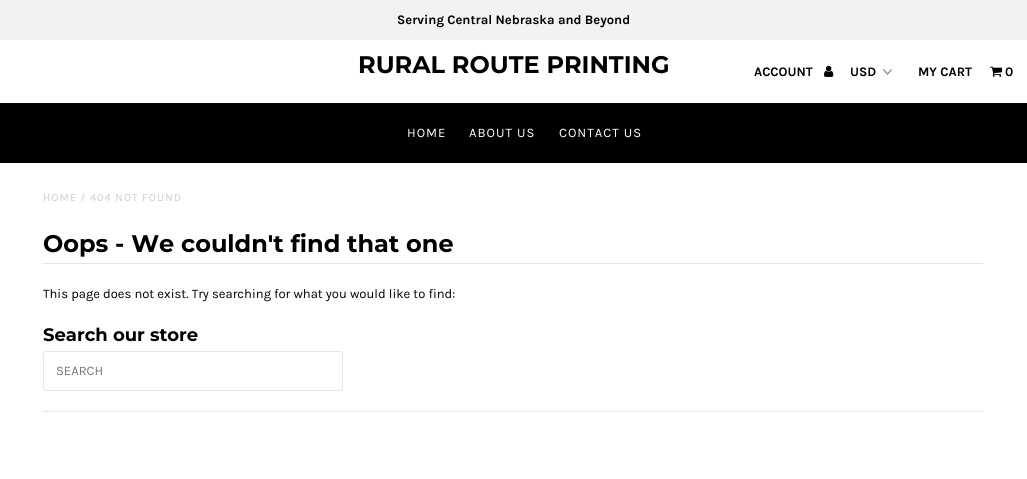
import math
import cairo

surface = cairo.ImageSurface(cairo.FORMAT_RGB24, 1027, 479)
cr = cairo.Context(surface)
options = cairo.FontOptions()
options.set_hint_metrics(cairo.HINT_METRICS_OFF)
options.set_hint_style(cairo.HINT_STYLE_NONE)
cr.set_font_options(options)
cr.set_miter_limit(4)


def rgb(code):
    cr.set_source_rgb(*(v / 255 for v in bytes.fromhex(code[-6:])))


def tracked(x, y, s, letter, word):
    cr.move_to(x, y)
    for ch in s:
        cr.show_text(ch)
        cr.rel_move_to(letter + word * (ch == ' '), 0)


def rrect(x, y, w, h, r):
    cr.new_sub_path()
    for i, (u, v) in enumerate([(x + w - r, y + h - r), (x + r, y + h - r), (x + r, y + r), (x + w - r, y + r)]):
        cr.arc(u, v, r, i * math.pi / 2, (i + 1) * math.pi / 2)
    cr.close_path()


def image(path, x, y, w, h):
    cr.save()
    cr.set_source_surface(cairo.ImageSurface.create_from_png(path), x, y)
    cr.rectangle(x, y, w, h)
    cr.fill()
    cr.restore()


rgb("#ffffff")
cr.paint()
rgb("#f2f2f2")
cr.rectangle(0, 0, 1027, 40)
cr.fill()
image("img/1.png", 824, 65, 10, 12)
image("img/2.png", 883, 69, 9, 6)
image("img/3.png", 990, 66, 13, 11)
for x, y, w, h, color in [
    (0, 103, 1027, 60, "#000000"),
    (43, 263, 940, 1, "#e5e5e5"),
    (43, 411, 940, 1, "#e5e5e5"),
]:
    rgb(color)
    cr.rectangle(x, y, w, h)
    cr.fill()
rrect(43.5, 351.5, 299, 39, 2.5)
cr.set_line_width(1)
cr.stroke()
cr.select_font_face("Karla", cairo.FONT_SLANT_NORMAL, cairo.FONT_WEIGHT_BOLD)
cr.set_font_size(13)
rgb("#000000")
cr.move_to(397, 24)
cr.show_text("Serving Central Nebraska and Beyond")
cr.select_font_face("Montserrat", cairo.FONT_SLANT_NORMAL, cairo.FONT_WEIGHT_BOLD)
cr.set_font_size(24)
cr.move_to(358, 73)
cr.show_text("RURAL ROUTE PRINTING")
cr.select_font_face("Karla", cairo.FONT_SLANT_NORMAL, cairo.FONT_WEIGHT_BOLD)
cr.set_font_size(13)
for x, y, s in [
    (754, 76, "ACCOUNT"),
    (850, 76, "USD"),
    (918, 76, "MY CART"),
    (1005, 76, "0"),
]:
    cr.move_to(x, y)
    cr.show_text(s)
cr.select_font_face("Karla")
rgb("#ffffff")
for x, y, s in [
    (407, 137, "HOME"),
    (469, 137, "ABOUT US"),
    (559, 137, "CONTACT US"),
]:
    tracked(x, y, s, 1, 0)
cr.set_font_size(11)
rgb("#cccccc")
tracked(43, 201, "HOME / 404 NOT FOUND", 1, 0)
cr.select_font_face("Montserrat", cairo.FONT_SLANT_NORMAL, cairo.FONT_WEIGHT_BOLD)
cr.set_font_size(24)
rgb("#000000")
cr.move_to(43, 252)
cr.show_text("Oops - We couldn't find that one")
cr.select_font_face("Karla")
cr.set_font_size(13)
cr.move_to(43, 298)
cr.show_text("This page does not exist. Try searching for what you would like to find:")
cr.select_font_face("Montserrat", cairo.FONT_SLANT_NORMAL, cairo.FONT_WEIGHT_BOLD)
cr.set_font_size(18)
cr.move_to(43, 341)
cr.show_text("Search our store")
cr.select_font_face("Karla")
cr.set_font_size(13)
rgb("#757575")
cr.move_to(56, 375)
cr.show_text("SEARCH")
surface.write_to_png("page.png")
